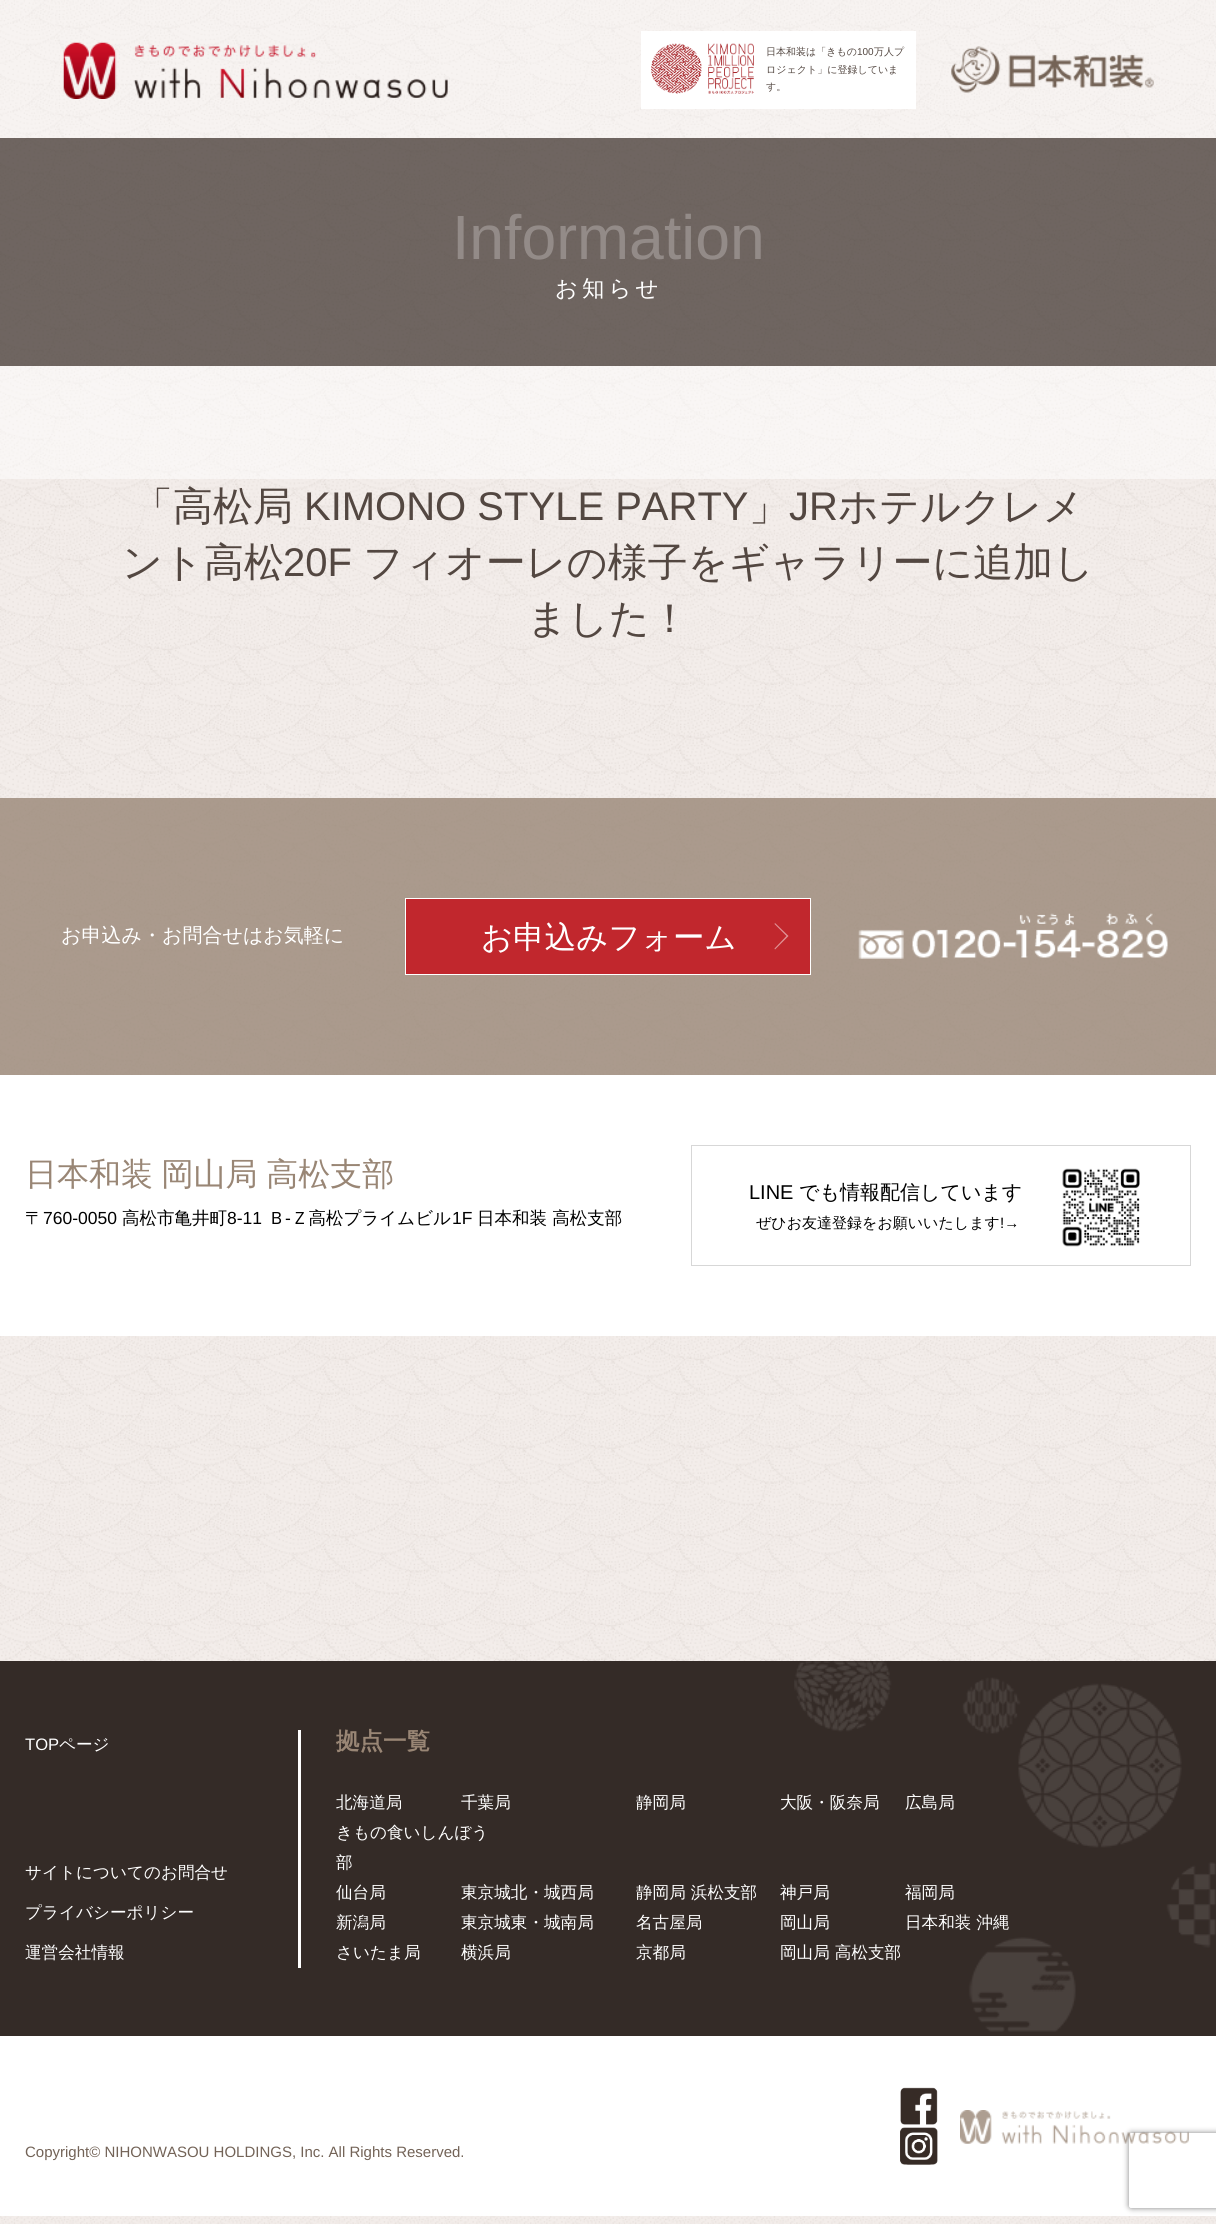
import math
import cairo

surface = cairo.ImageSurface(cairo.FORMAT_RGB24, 1216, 2224)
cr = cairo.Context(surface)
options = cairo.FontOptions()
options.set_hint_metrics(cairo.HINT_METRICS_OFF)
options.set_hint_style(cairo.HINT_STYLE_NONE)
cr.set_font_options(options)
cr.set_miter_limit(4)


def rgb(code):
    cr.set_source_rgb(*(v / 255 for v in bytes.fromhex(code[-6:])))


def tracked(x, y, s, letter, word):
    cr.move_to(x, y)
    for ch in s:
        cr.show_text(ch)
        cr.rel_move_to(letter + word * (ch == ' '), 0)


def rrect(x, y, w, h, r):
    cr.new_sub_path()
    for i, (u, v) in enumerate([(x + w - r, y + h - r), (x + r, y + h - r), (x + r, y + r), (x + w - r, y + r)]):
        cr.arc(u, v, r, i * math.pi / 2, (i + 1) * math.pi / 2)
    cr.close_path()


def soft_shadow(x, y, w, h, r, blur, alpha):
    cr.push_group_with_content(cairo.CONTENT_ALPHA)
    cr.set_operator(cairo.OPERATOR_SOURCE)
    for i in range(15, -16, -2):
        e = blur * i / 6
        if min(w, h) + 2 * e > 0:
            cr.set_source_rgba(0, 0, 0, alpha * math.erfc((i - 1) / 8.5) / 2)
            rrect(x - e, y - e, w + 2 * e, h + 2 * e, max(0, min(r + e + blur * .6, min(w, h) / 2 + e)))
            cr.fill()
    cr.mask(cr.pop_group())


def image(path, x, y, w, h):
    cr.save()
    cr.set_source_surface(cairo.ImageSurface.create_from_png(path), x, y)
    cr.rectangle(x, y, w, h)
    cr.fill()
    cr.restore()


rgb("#ffffff")
cr.paint()
image("img/1.png", 0, 0, 1216, 2224)
cr.set_source_rgba(1, 1, 1, 0.35)
cr.rectangle(0, 0, 1216, 138)
cr.fill()
image("img/2.png", 951, 46, 203, 47)
image("img/3.png", 63, 42, 385, 57)
rgb("#ffffff")
cr.rectangle(641, 31, 275, 78)
cr.fill()
image("img/4.png", 651, 43, 103, 51)
cr.set_source_rgba(0.263, 0.22, 0.2, 0.75)
cr.rectangle(0, 138, 1216, 228)
cr.fill()
cr.set_source_rgba(1, 1, 1, 0.5)
cr.rectangle(0, 366, 1216, 113)
cr.fill()
cr.set_source_rgba(0.6, 0.525, 0.459, 0.8)
cr.rectangle(0, 798, 1216, 277)
cr.fill()
rgb("#c1272d")
cr.rectangle(405.5, 898.5, 405, 76)
cr.fill_preserve()
rgb("#ffffff")
cr.set_line_width(1)
cr.stroke()
rgb("#e09396")
cr.new_path()
cr.move_to(775, 923)
cr.line_to(788.5, 936)
cr.line_to(786.5, 936)
cr.line_to(774.5, 924)
cr.close_path()
cr.move_to(788.5, 936)
cr.line_to(775, 949.5)
cr.line_to(774.5, 948.5)
cr.line_to(786.5, 936)
cr.close_path()
cr.fill()
image("img/5.png", 858, 913, 310, 46)
rgb("#ffffff")
cr.rectangle(0, 1075, 1216, 261)
cr.fill()
cr.rectangle(691.5, 1145.5, 499, 120)
rgb("#d7d7d7")
cr.stroke()
image("img/6.png", 1062, 1168, 78, 79)
rgb("#ffffff")
cr.rectangle(0, 2036, 1216, 180)
cr.fill()
rgb("#342b27")
cr.rectangle(0, 1661, 1216, 375)
cr.fill()
image("img/7.png", 794, 1661, 422, 371)
rgb("#ffffff")
cr.rectangle(298, 1730, 3, 238)
cr.fill()
image("img/8.png", 960, 2110, 229, 34)
image("img/9.png", 900, 2087, 38, 38)
image("img/10.png", 900, 2127, 38, 38)
cr.save()
cr.set_fill_rule(cairo.FILL_RULE_EVEN_ODD)
cr.new_path()
cr.move_to(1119, 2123)
cr.line_to(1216, 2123)
cr.line_to(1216, 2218)
cr.line_to(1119, 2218)
cr.close_path()
cr.move_to(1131.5, 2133)
cr.line_to(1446.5, 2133)
cr.curve_to(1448, 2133, 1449, 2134, 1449, 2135.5)
cr.line_to(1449, 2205.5)
cr.curve_to(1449, 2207, 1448, 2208, 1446.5, 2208)
cr.line_to(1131.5, 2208)
cr.curve_to(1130, 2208, 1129, 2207, 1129, 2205.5)
cr.line_to(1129, 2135.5)
cr.curve_to(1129, 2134, 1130, 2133, 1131.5, 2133)
cr.close_path()
cr.clip()
rgb("#808080")
soft_shadow(1129, 2133, 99, 75, 2.5, 3, 1)
cr.restore()
cr.select_font_face("WenQuanYi Zen Hei Medium")
cr.set_font_size(10)
rgb("#534741")
cr.move_to(766, 55)
cr.show_text("日本和装は「きもの")
cr.select_font_face("Liberation Sans")
cr.move_to(857, 55)
cr.show_text("100")
cr.select_font_face("WenQuanYi Zen Hei Medium")
for x, y, s in [
    (874, 55, "万人プ"),
    (766, 73, "ロジェクト」に登録していま"),
    (766, 90, "す。"),
]:
    cr.move_to(x, y)
    cr.show_text(s)
cr.select_font_face("Liberation Sans")
cr.set_font_size(62.5)
rgb("#938b88")
cr.move_to(452, 259)
cr.show_text("Information")
cr.select_font_face("WenQuanYi Zen Hei Medium")
cr.set_font_size(22.5)
rgb("#ffffff")
tracked(555, 296, "お知らせ", 4, 0)
cr.set_font_size(40)
rgb("#534741")
cr.move_to(133, 520)
cr.show_text("「高松局")
cr.select_font_face("Liberation Sans")
cr.move_to(304, 520)
cr.show_text("KIMONO STYLE PARTY")
cr.select_font_face("WenQuanYi Zen Hei Medium")
cr.move_to(749, 520)
cr.show_text("」")
cr.select_font_face("Liberation Sans")
cr.move_to(789, 520)
cr.show_text("JR")
cr.select_font_face("WenQuanYi Zen Hei Medium")
cr.move_to(838, 520)
cr.show_text("ホテルクレメ")
cr.move_to(122, 576)
cr.show_text("ント高松")
cr.select_font_face("Liberation Sans")
cr.move_to(283, 576)
cr.show_text("20F")
cr.select_font_face("WenQuanYi Zen Hei Medium")
cr.move_to(363, 576)
cr.show_text("フィオーレの様子をギャラリーに追加し")
cr.move_to(527, 632)
cr.show_text("ました！")
cr.set_font_size(20)
rgb("#ffffff")
cr.move_to(61, 942)
cr.show_text("お申込み・お問合せはお気軽に")
cr.set_font_size(31.5)
cr.move_to(481, 948)
cr.show_text("お申込みフォーム")
cr.set_font_size(32)
rgb("#998675")
tracked(25, 1185, "日本和装 岡山局 高松支部", 0, -1)
cr.set_font_size(17.5)
rgb("#000000")
cr.move_to(25, 1224)
cr.show_text("〒")
cr.select_font_face("Liberation Sans")
cr.move_to(43, 1224)
cr.show_text("760-0050")
cr.select_font_face("WenQuanYi Zen Hei Medium")
cr.move_to(122, 1224)
cr.show_text("高松市亀井町")
cr.select_font_face("Liberation Sans")
cr.move_to(227, 1224)
cr.show_text("8-11")
cr.select_font_face("WenQuanYi Zen Hei Medium")
cr.move_to(268, 1224)
cr.show_text("Ｂ")
cr.select_font_face("Liberation Sans")
cr.move_to(285, 1224)
cr.show_text("-")
cr.select_font_face("WenQuanYi Zen Hei Medium")
cr.move_to(291, 1224)
cr.show_text("Ｚ高松プライムビル")
cr.select_font_face("Liberation Sans")
cr.move_to(452, 1224)
cr.show_text("1F")
cr.select_font_face("WenQuanYi Zen Hei Medium")
cr.move_to(477, 1224)
cr.show_text("日本和装 高松支部")
cr.select_font_face("Liberation Sans")
cr.set_font_size(20)
cr.move_to(749, 1199)
cr.show_text("LINE")
cr.select_font_face("WenQuanYi Zen Hei Medium")
cr.move_to(799, 1199)
cr.show_text("でも情報配信しています")
cr.set_font_size(15)
cr.move_to(756, 1228)
cr.show_text("ぜひお友達登録をお願いいたします")
cr.select_font_face("Liberation Sans")
cr.move_to(1000, 1228)
cr.show_text("!→")
cr.set_font_size(16.6)
rgb("#ffffff")
cr.move_to(25, 1750)
cr.show_text("TOP")
cr.select_font_face("WenQuanYi Zen Hei Medium")
for x, y, s in [
    (59, 1750, "ページ"),
    (25, 1878, "サイトについてのお問合せ"),
    (25, 1918, "プライバシーポリシー"),
    (25, 1958, "運営会社情報"),
]:
    cr.move_to(x, y)
    cr.show_text(s)
cr.select_font_face("WenQuanYi Zen Hei", cairo.FONT_SLANT_NORMAL, cairo.FONT_WEIGHT_BOLD)
cr.set_font_size(23.5)
rgb("#998675")
cr.move_to(336, 1749)
cr.show_text("拠点一覧")
cr.select_font_face("WenQuanYi Zen Hei Medium")
cr.set_font_size(16.6)
rgb("#ffffff")
for x, y, s in [
    (336, 1808, "北海道局"),
    (461, 1808, "千葉局"),
    (636, 1808, "静岡局"),
    (780, 1808, "大阪・阪奈局"),
    (905, 1808, "広島局"),
    (336, 1838, "きもの食いしんぼう"),
    (336, 1868, "部"),
    (336, 1898, "仙台局"),
    (461, 1898, "東京城北・城西局"),
    (636, 1898, "静岡局 浜松支部"),
    (780, 1898, "神戸局"),
    (905, 1898, "福岡局"),
    (336, 1928, "新潟局"),
    (461, 1928, "東京城東・城南局"),
    (636, 1928, "名古屋局"),
    (780, 1928, "岡山局"),
    (905, 1928, "日本和装 沖縄"),
    (336, 1958, "さいたま局"),
    (461, 1958, "横浜局"),
    (636, 1958, "京都局"),
    (780, 1958, "岡山局 高松支部"),
]:
    cr.move_to(x, y)
    cr.show_text(s)
cr.select_font_face("Liberation Sans")
cr.set_font_size(15)
rgb("#736357")
cr.move_to(25, 2157)
cr.show_text("Copyright© NIHONWASOU HOLDINGS, Inc. All Rights Reserved.")
surface.write_to_png("page.png")
